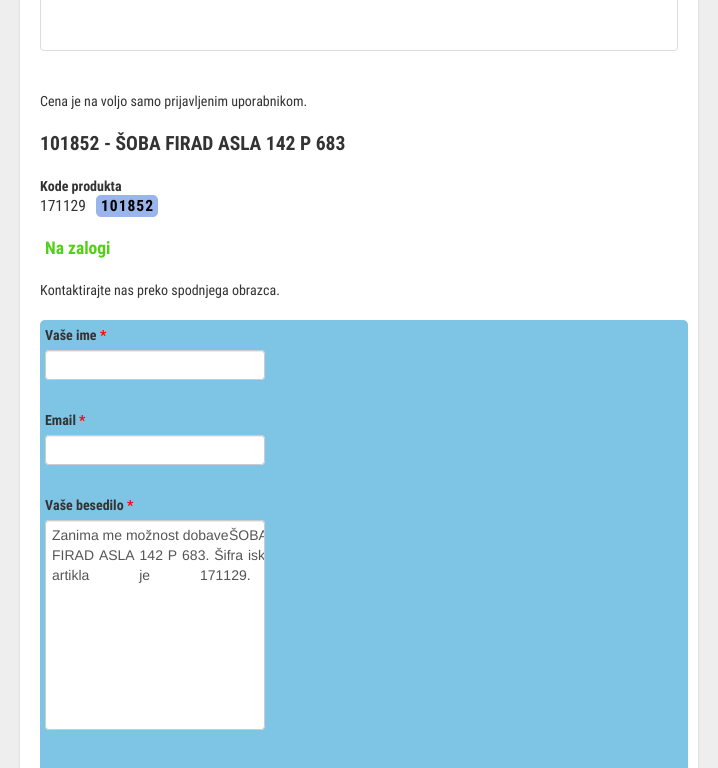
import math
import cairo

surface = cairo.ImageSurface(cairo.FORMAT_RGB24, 718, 768)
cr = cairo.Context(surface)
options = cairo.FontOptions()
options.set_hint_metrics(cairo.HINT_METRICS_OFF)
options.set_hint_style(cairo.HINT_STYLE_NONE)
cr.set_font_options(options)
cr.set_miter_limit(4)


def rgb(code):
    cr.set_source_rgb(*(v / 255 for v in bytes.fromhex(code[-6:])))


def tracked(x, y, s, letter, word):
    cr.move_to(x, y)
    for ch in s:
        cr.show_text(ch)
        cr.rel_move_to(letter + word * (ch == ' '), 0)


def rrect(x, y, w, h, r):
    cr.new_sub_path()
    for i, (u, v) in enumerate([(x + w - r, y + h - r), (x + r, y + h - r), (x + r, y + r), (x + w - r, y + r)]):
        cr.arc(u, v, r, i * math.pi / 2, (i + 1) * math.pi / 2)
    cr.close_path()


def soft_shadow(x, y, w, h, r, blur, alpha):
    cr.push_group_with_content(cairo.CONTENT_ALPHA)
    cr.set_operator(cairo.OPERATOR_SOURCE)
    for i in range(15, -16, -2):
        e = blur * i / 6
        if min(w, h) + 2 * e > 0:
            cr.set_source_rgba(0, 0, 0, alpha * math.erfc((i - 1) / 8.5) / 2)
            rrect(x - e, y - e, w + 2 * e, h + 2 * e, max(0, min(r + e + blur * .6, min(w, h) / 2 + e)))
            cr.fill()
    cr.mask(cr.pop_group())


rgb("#eeeeee")
cr.paint()
rgb("#000000")
soft_shadow(20, -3, 678, 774, 0, 1, 0.15)
rgb("#ffffff")
cr.rectangle(20, 0, 678, 768)
cr.fill()
rrect(40.5, -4.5, 637, 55, 3.5)
rgb("#dddddd")
cr.set_line_width(1)
cr.stroke()
rgb("#99b5eb")
rrect(96, 195, 62, 22, 5)
cr.fill()
rgb("#7ec4e5")
rrect(40, 320, 648, 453, 5)
cr.fill()
rgb("#ffffff")
rrect(45, 350, 220, 30, 4)
cr.fill()
rgb("#ececec")
cr.new_path()
cr.move_to(49, 352)
cr.line_to(261, 352)
cr.curve_to(263, 352, 264, 353, 264, 355)
cr.line_to(264, 354)
cr.curve_to(264, 352, 263, 351, 261, 351)
cr.line_to(49, 351)
cr.curve_to(47, 351, 46, 352, 46, 354)
cr.line_to(46, 355)
cr.curve_to(46, 353, 47, 352, 49, 352)
cr.close_path()
cr.fill()
rrect(45.5, 350.5, 219, 29, 3.5)
rgb("#cccccc")
cr.stroke()
rgb("#ffffff")
rrect(45, 435, 220, 30, 4)
cr.fill()
rgb("#ececec")
cr.new_path()
cr.move_to(49, 437)
cr.line_to(261, 437)
cr.curve_to(263, 437, 264, 438, 264, 440)
cr.line_to(264, 439)
cr.curve_to(264, 437, 263, 436, 261, 436)
cr.line_to(49, 436)
cr.curve_to(47, 436, 46, 437, 46, 439)
cr.line_to(46, 440)
cr.curve_to(46, 438, 47, 437, 49, 437)
cr.close_path()
cr.fill()
rrect(45.5, 435.5, 219, 29, 3.5)
rgb("#cccccc")
cr.stroke()
rgb("#ffffff")
rrect(45, 520, 220, 210, 4)
cr.fill()
rgb("#ececec")
cr.new_path()
cr.move_to(49, 522)
cr.line_to(261, 522)
cr.curve_to(263, 522, 264, 523, 264, 525)
cr.line_to(264, 524)
cr.curve_to(264, 522, 263, 521, 261, 521)
cr.line_to(49, 521)
cr.curve_to(47, 521, 46, 522, 46, 524)
cr.line_to(46, 525)
cr.curve_to(46, 523, 47, 522, 49, 522)
cr.close_path()
cr.fill()
rrect(45.5, 520.5, 219, 209, 3.5)
rgb("#cccccc")
cr.stroke()
cr.select_font_face("Roboto Condensed")
cr.set_font_size(14)
rgb("#333333")
cr.move_to(40, 106)
cr.show_text("Cena je na voljo samo prijavljenim uporabnikom.")
cr.select_font_face("Roboto Condensed", cairo.FONT_SLANT_NORMAL, cairo.FONT_WEIGHT_BOLD)
cr.set_font_size(19.6)
cr.move_to(40, 150)
cr.show_text("101852 - ŠOBA FIRAD ASLA 142 P 683")
cr.set_font_size(14)
cr.move_to(40, 191)
cr.show_text("Kode produkta")
cr.select_font_face("Roboto Condensed")
cr.set_font_size(15.5)
cr.move_to(40, 211)
cr.show_text("171129")
cr.select_font_face("Roboto Condensed", cairo.FONT_SLANT_NORMAL, cairo.FONT_WEIGHT_BOLD)
rgb("#000000")
tracked(101, 211, "101852", 1, 0)
cr.set_font_size(17.5)
rgb("#52d017")
cr.move_to(45, 254)
cr.show_text("Na zalogi")
cr.select_font_face("Roboto Condensed")
cr.set_font_size(14)
rgb("#333333")
cr.move_to(40, 295)
cr.show_text("Kontaktirajte nas preko spodnjega obrazca.")
cr.select_font_face("Roboto Condensed", cairo.FONT_SLANT_NORMAL, cairo.FONT_WEIGHT_BOLD)
cr.move_to(45, 340)
cr.show_text("Vaše ime")
rgb("#ff0000")
cr.move_to(100, 340)
cr.show_text("*")
rgb("#333333")
cr.move_to(45, 425)
cr.show_text("Email")
rgb("#ff0000")
cr.move_to(79, 425)
cr.show_text("*")
rgb("#333333")
cr.move_to(45, 510)
cr.show_text("Vaše besedilo")
rgb("#ff0000")
cr.move_to(127, 510)
cr.show_text("*")
cr.select_font_face("Liberation Sans")
rgb("#555555")
cr.move_to(52, 540)
cr.show_text("Zanima me možnost dobave")
cr.save()
rrect(46, 521, 218, 208, 3)
cr.clip()
cr.move_to(229, 540)
cr.show_text("ŠOBA")
cr.restore()
tracked(52, 560, "FIRAD ASLA 142 P 683. Šifra", 0, 1)
cr.save()
rrect(46, 521, 218, 208, 3)
cr.clip()
cr.move_to(248, 560)
cr.show_text("isk")
cr.restore()
tracked(52, 580, "artikla je 171129.", 0, 46)
surface.write_to_png("page.png")
